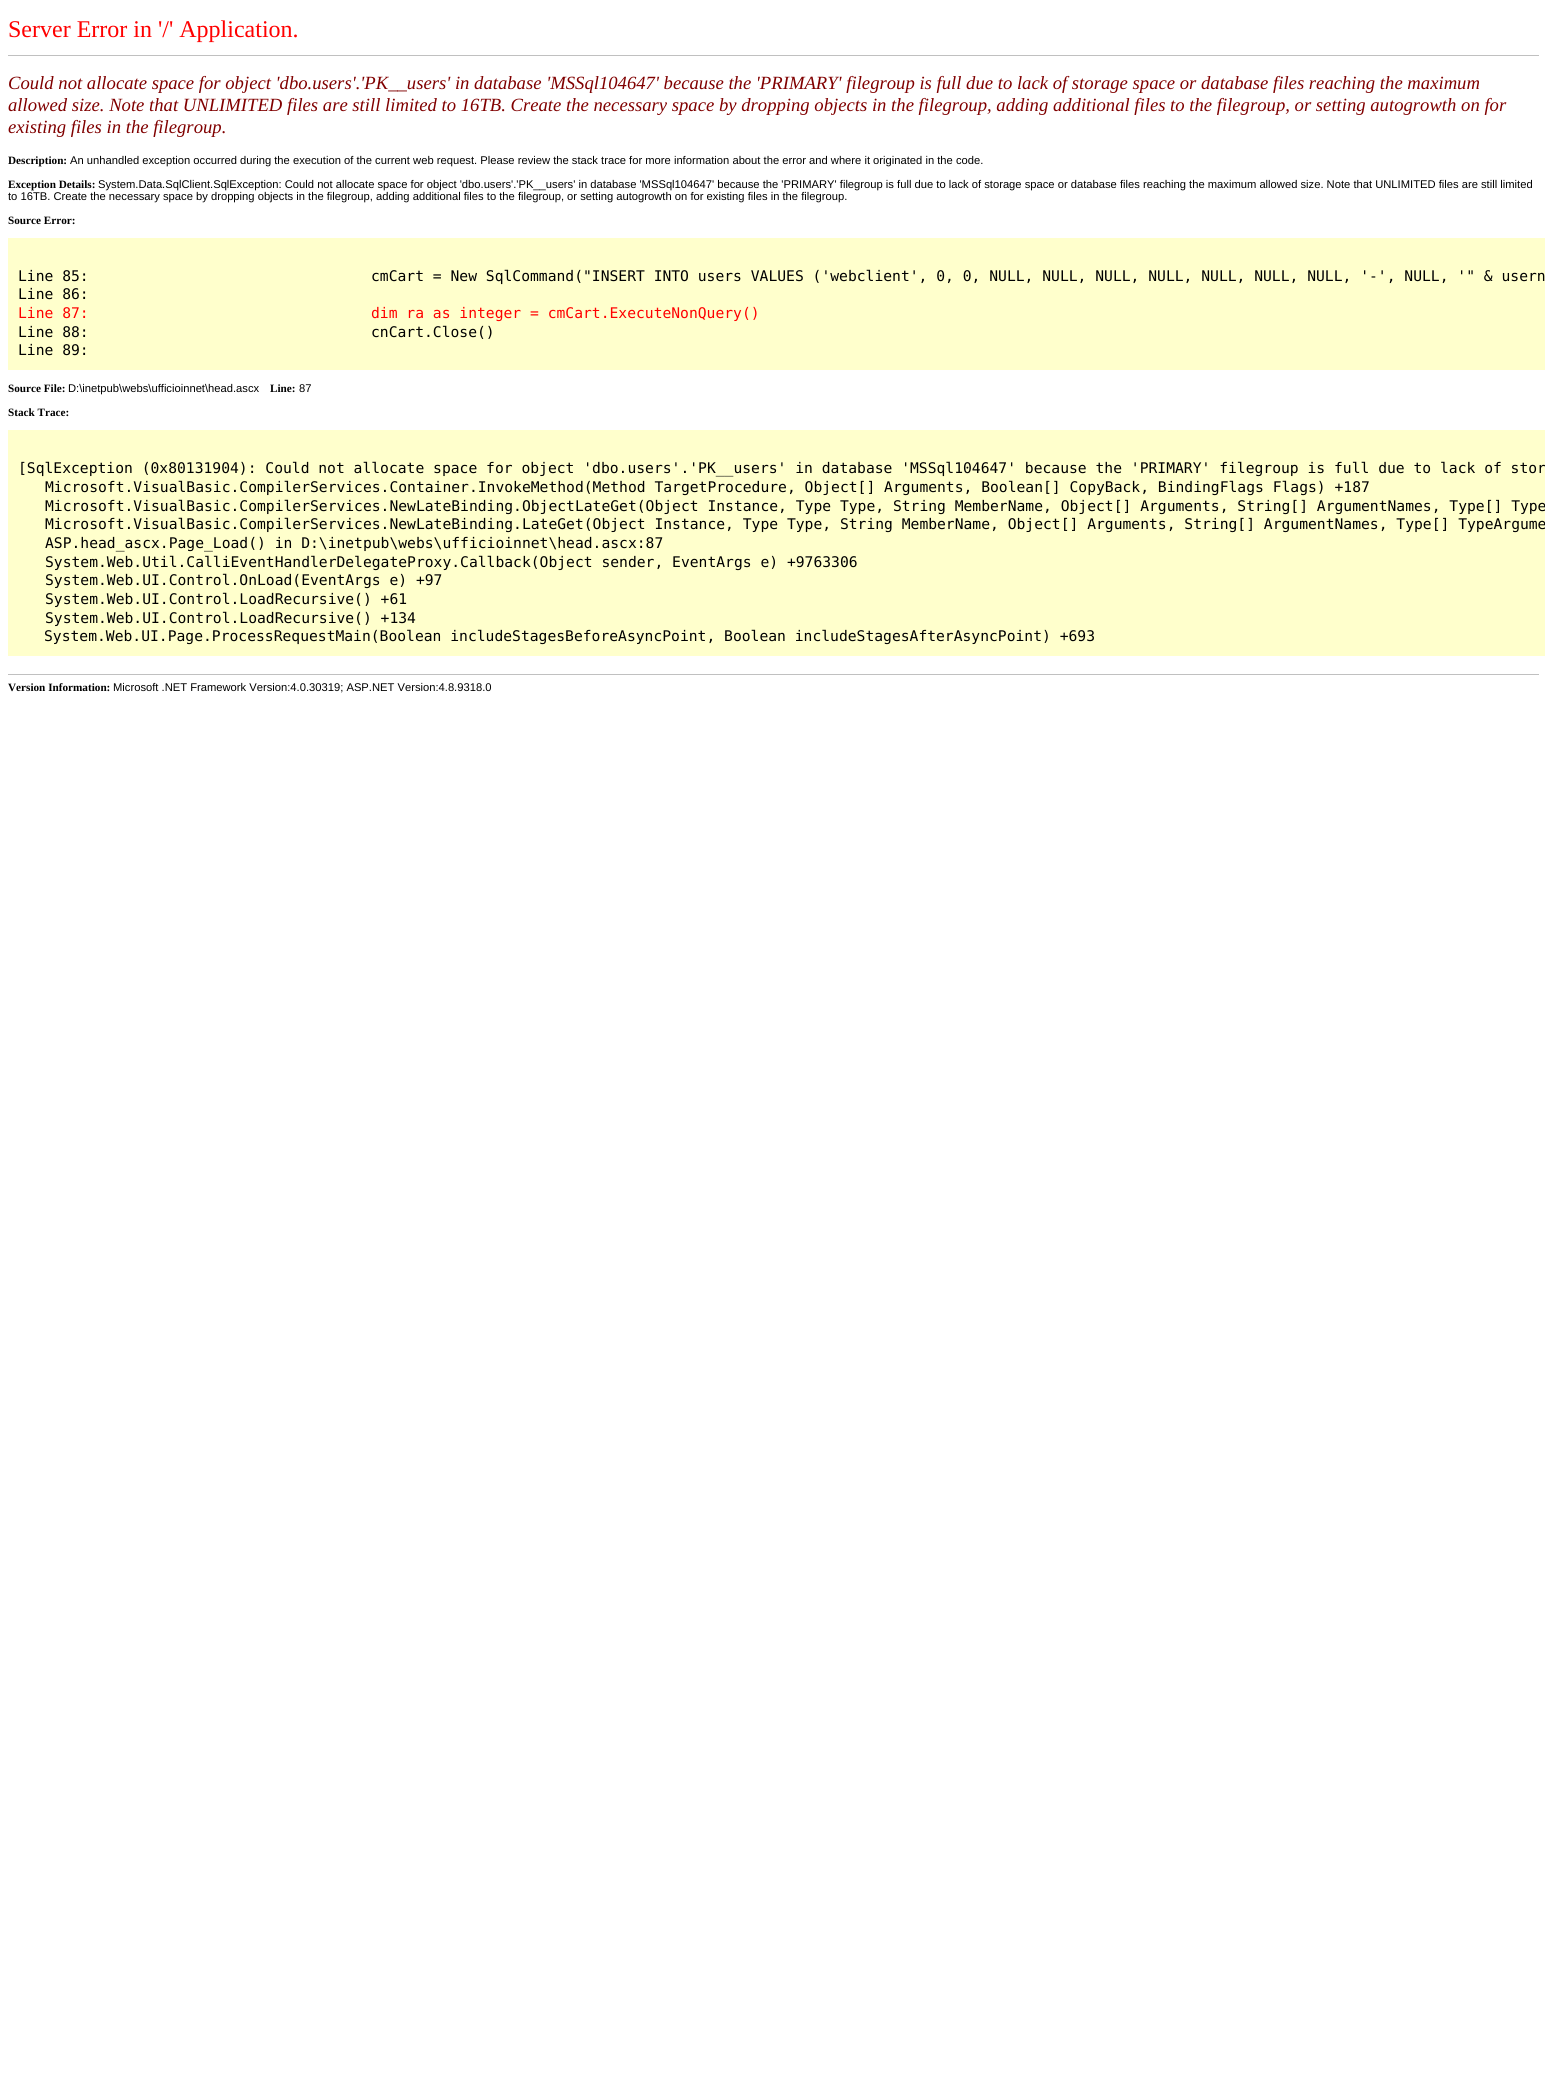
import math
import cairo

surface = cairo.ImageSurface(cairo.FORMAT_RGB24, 1545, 2074)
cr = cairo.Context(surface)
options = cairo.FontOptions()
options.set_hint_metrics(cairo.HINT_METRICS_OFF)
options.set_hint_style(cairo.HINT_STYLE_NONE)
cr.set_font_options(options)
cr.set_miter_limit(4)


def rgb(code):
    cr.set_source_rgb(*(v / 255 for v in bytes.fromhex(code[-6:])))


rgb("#ffffff")
cr.paint()
for x, y, w, h, color in [
    (8, 55, 1531, 1, "#c0c0c0"),
    (8, 238, 1537, 132, "#ffffcc"),
    (8, 430, 1537, 226, "#ffffcc"),
    (8, 674, 1531, 1, "#c0c0c0"),
]:
    rgb(color)
    cr.rectangle(x, y, w, h)
    cr.fill()
cr.select_font_face("Liberation Serif")
cr.set_font_size(24)
rgb("#ff0000")
cr.move_to(8, 37)
cr.show_text("Server Error in '/' Application.")
cr.select_font_face("Liberation Serif", cairo.FONT_SLANT_ITALIC)
cr.set_font_size(18.67)
rgb("#800000")
for x, y, s in [
    (8, 89, "Could not allocate space for object 'dbo.users'.'PK__users' in database 'MSSql104647' because the 'PRIMARY' filegroup is full due to lack of storage space or database files reaching the maximum"),
    (8, 111, "allowed size. Note that UNLIMITED files are still limited to 16TB. Create the necessary space by dropping objects in the filegroup, adding additional files to the filegroup, or setting autogrowth on for"),
    (8, 133, "existing files in the filegroup."),
]:
    cr.move_to(x, y)
    cr.show_text(s)
cr.select_font_face("Liberation Serif", cairo.FONT_SLANT_NORMAL, cairo.FONT_WEIGHT_BOLD)
cr.set_font_size(11.2)
rgb("#000000")
cr.move_to(8, 164)
cr.show_text("Description:")
cr.select_font_face("Liberation Sans")
cr.move_to(70, 164)
cr.show_text("An unhandled exception occurred during the execution of the current web request. Please review the stack trace for more information about the error and where it originated in the code.")
cr.select_font_face("Liberation Serif", cairo.FONT_SLANT_NORMAL, cairo.FONT_WEIGHT_BOLD)
cr.move_to(8, 188)
cr.show_text("Exception Details:")
cr.select_font_face("Liberation Sans")
cr.move_to(98, 188)
cr.show_text("System.Data.SqlClient.SqlException: Could not allocate space for object 'dbo.users'.'PK__users' in database 'MSSql104647' because the 'PRIMARY' filegroup is full due to lack of storage space or database files reaching the maximum allowed size. Note that UNLIMITED files are still limited")
cr.move_to(8, 200)
cr.show_text("to 16TB. Create the necessary space by dropping objects in the filegroup, adding additional files to the filegroup, or setting autogrowth on for existing files in the filegroup.")
cr.select_font_face("Liberation Serif", cairo.FONT_SLANT_NORMAL, cairo.FONT_WEIGHT_BOLD)
cr.move_to(8, 224)
cr.show_text("Source Error:")
cr.select_font_face("DejaVu Sans Mono")
cr.set_font_size(14.67)
for x, y, s in [
    (18, 281, "Line 85:"),
    (371, 281, "cmCart = New SqlCommand(\"INSERT INTO users VALUES ('webclient', 0, 0, NULL, NULL, NULL, NULL, NULL, NULL, NULL, '-', NULL, '\" & usern"),
    (18, 299, "Line 86:"),
]:
    cr.move_to(x, y)
    cr.show_text(s)
rgb("#ff0000")
cr.move_to(18, 318)
cr.show_text("Line 87:")
cr.move_to(371, 318)
cr.show_text("dim ra as integer = cmCart.ExecuteNonQuery()")
rgb("#000000")
for x, y, s in [
    (18, 337, "Line 88:"),
    (371, 337, "cnCart.Close()"),
    (18, 355, "Line 89:"),
]:
    cr.move_to(x, y)
    cr.show_text(s)
cr.select_font_face("Liberation Serif", cairo.FONT_SLANT_NORMAL, cairo.FONT_WEIGHT_BOLD)
cr.set_font_size(11.2)
cr.move_to(8, 392)
cr.show_text("Source File:")
cr.select_font_face("Liberation Sans")
cr.move_to(68, 392)
cr.show_text("D:\\inetpub\\webs\\ufficioinnet\\head.ascx")
cr.select_font_face("Liberation Serif", cairo.FONT_SLANT_NORMAL, cairo.FONT_WEIGHT_BOLD)
cr.move_to(270, 392)
cr.show_text("Line:")
cr.select_font_face("Liberation Sans")
cr.move_to(299, 392)
cr.show_text("87")
cr.select_font_face("Liberation Serif", cairo.FONT_SLANT_NORMAL, cairo.FONT_WEIGHT_BOLD)
cr.move_to(8, 416)
cr.show_text("Stack Trace:")
cr.select_font_face("DejaVu Sans Mono")
cr.set_font_size(14.67)
for x, y, s in [
    (18, 473, "[SqlException (0x80131904): Could not allocate space for object 'dbo.users'.'PK__users' in database 'MSSql104647' because the 'PRIMARY' filegroup is full due to lack of stor"),
    (45, 492, "Microsoft.VisualBasic.CompilerServices.Container.InvokeMethod(Method TargetProcedure, Object[] Arguments, Boolean[] CopyBack, BindingFlags Flags) +187"),
    (45, 511, "Microsoft.VisualBasic.CompilerServices.NewLateBinding.ObjectLateGet(Object Instance, Type Type, String MemberName, Object[] Arguments, String[] ArgumentNames, Type[] Type"),
    (45, 529, "Microsoft.VisualBasic.CompilerServices.NewLateBinding.LateGet(Object Instance, Type Type, String MemberName, Object[] Arguments, String[] ArgumentNames, Type[] TypeArgume"),
    (45, 548, "ASP.head_ascx.Page_Load() in D:\\inetpub\\webs\\ufficioinnet\\head.ascx:87"),
    (45, 567, "System.Web.Util.CalliEventHandlerDelegateProxy.Callback(Object sender, EventArgs e) +9763306"),
    (45, 585, "System.Web.UI.Control.OnLoad(EventArgs e) +97"),
    (45, 604, "System.Web.UI.Control.LoadRecursive() +61"),
    (45, 623, "System.Web.UI.Control.LoadRecursive() +134"),
    (44, 641, "System.Web.UI.Page.ProcessRequestMain(Boolean includeStagesBeforeAsyncPoint, Boolean includeStagesAfterAsyncPoint) +693"),
]:
    cr.move_to(x, y)
    cr.show_text(s)
cr.select_font_face("Liberation Serif", cairo.FONT_SLANT_NORMAL, cairo.FONT_WEIGHT_BOLD)
cr.set_font_size(11.2)
cr.move_to(8, 691)
cr.show_text("Version Information:")
cr.select_font_face("Liberation Sans")
cr.move_to(113, 691)
cr.show_text("Microsoft .NET Framework Version:4.0.30319; ASP.NET Version:4.8.9318.0")
surface.write_to_png("page.png")
